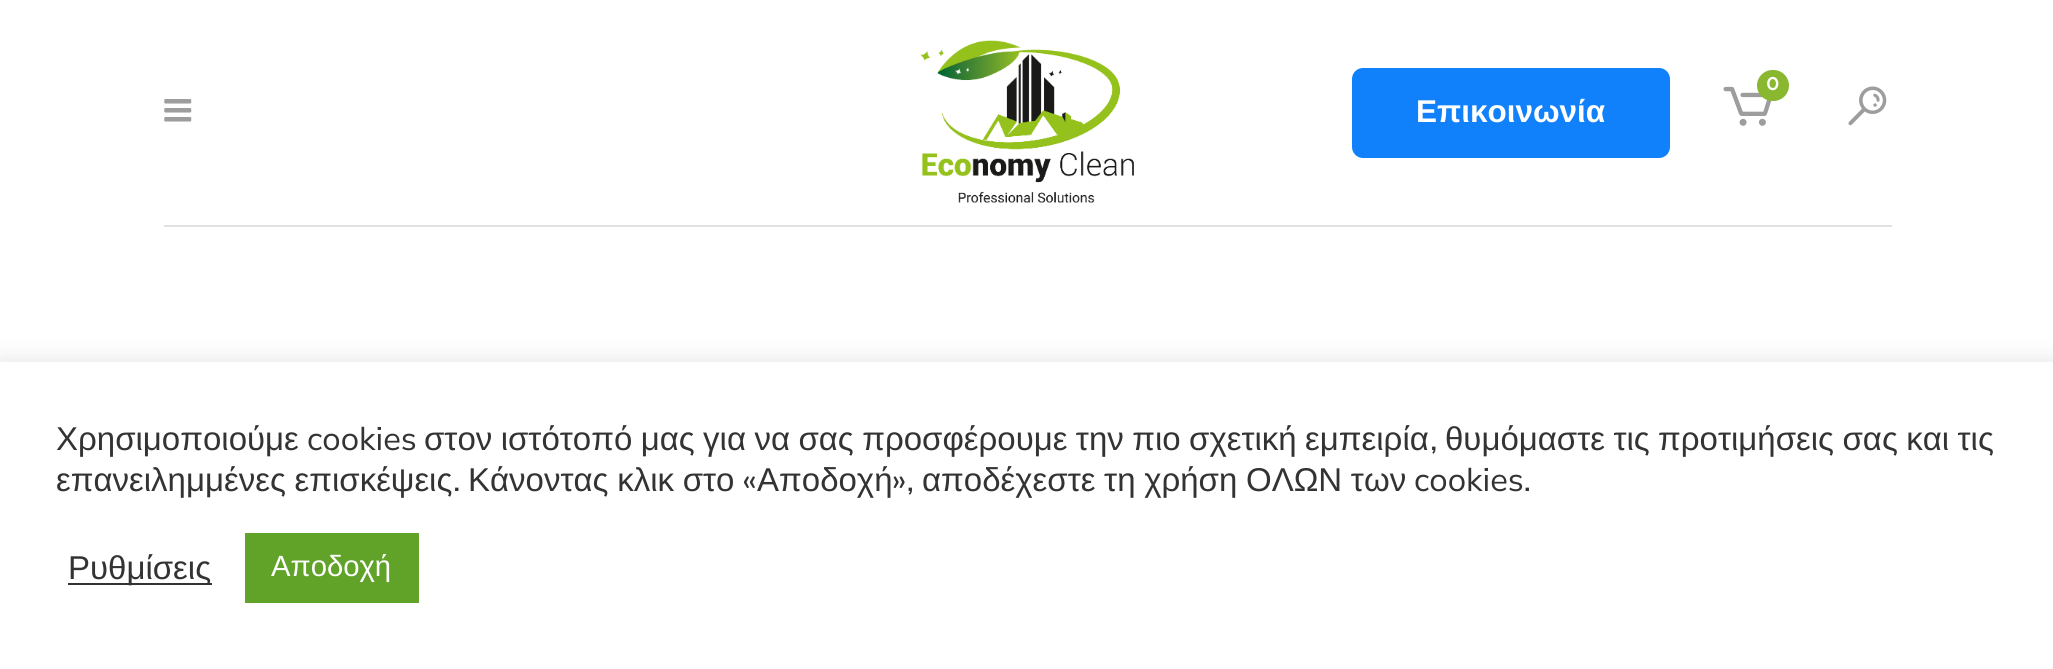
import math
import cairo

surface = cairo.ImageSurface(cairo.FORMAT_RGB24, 2053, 669)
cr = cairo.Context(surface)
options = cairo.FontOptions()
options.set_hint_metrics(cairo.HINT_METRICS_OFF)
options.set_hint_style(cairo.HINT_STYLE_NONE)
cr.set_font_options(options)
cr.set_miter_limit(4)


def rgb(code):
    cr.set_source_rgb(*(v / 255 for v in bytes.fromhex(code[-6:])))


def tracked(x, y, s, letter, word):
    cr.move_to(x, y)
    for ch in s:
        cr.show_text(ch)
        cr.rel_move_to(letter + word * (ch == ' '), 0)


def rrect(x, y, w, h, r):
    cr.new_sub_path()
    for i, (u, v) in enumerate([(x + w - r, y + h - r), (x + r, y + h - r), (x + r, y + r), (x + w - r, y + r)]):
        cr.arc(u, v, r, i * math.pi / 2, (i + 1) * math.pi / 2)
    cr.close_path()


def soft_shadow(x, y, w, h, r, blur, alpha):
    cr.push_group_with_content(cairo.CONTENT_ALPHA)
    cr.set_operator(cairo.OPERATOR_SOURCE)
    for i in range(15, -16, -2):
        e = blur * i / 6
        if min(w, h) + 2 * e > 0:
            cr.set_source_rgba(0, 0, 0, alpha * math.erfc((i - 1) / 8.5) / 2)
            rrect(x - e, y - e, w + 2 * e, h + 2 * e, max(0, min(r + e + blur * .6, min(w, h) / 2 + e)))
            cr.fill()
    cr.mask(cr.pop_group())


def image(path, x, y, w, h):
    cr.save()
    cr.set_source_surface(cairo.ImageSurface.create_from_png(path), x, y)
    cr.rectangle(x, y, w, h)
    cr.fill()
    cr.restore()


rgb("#ffffff")
cr.paint()
rgb("#e1e1e1")
cr.rectangle(164, 225, 1728, 2)
cr.fill()
image("img/1.png", 164, 99, 28, 23)
image("img/2.png", 920, 40, 214, 163)
image("img/3.png", 1723, 86, 49, 40)
rgb("#89b730")
rrect(1757, 70, 32, 31, 15.5)
cr.fill()
rgb("#1181fb")
rrect(1352, 68, 318, 90, 11)
cr.fill()
image("img/4.png", 1848, 86, 39, 40)
rgb("#acabab")
soft_shadow(0, 360, 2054, 308, 0, 11, 0.3)
for x, y, w, h, color in [
    (0, 362, 2053, 307, "#ffffff"),
    (68, 583, 144, 2, "#333333"),
    (245, 533, 174, 70, "#61a229"),
]:
    rgb(color)
    cr.rectangle(x, y, w, h)
    cr.fill()
cr.select_font_face("Raleway SemiBold")
cr.set_font_size(22)
rgb("#ffffff")
cr.move_to(1766, 90)
cr.show_text("0")
cr.select_font_face("Liberation Sans", cairo.FONT_SLANT_NORMAL, cairo.FONT_WEIGHT_BOLD)
cr.set_font_size(31.5)
cr.move_to(1416, 122)
cr.show_text("Επικοινωνία")
cr.select_font_face("Liberation Sans")
cr.set_font_size(33)
rgb("#333333")
cr.move_to(56, 450)
cr.show_text("Χρησιμοποιούμε")
cr.select_font_face("Nunito Sans")
cr.move_to(307, 450)
cr.show_text("cookies")
cr.select_font_face("Liberation Sans")
tracked(424, 450, "στον ιστότοπό μας για να σας προσφέρουμε την πιο σχετική εμπειρία", 0, -0.75)
cr.select_font_face("Nunito Sans")
cr.move_to(1430, 450)
cr.show_text(",")
cr.select_font_face("Liberation Sans")
tracked(1445, 450, "θυμόμαστε τις προτιμήσεις σας και τις", 0, -0.75)
tracked(56, 491, "επανειλημμένες επισκέψεις", 0, -0.5)
cr.select_font_face("Nunito Sans")
cr.move_to(453, 491)
cr.show_text(".")
cr.select_font_face("Liberation Sans")
tracked(468, 491, "Κάνοντας κλικ στο", 0, -0.5)
cr.select_font_face("Nunito Sans")
cr.move_to(742, 491)
cr.show_text("«")
cr.select_font_face("Liberation Sans")
cr.move_to(757, 491)
cr.show_text("Αποδοχή")
cr.select_font_face("Nunito Sans")
cr.move_to(892, 491)
cr.show_text("»,")
cr.select_font_face("Liberation Sans")
tracked(922, 491, "αποδέχεστε τη χρήση ΟΛΩΝ των", 0, -0.5)
cr.select_font_face("Nunito Sans")
cr.move_to(1414, 491)
cr.show_text("cookies.")
cr.select_font_face("Liberation Sans")
cr.move_to(68, 579)
cr.show_text("Ρυθμίσεις")
cr.set_font_size(29.25)
rgb("#ffffff")
cr.move_to(271, 576)
cr.show_text("Αποδοχή")
surface.write_to_png("page.png")
